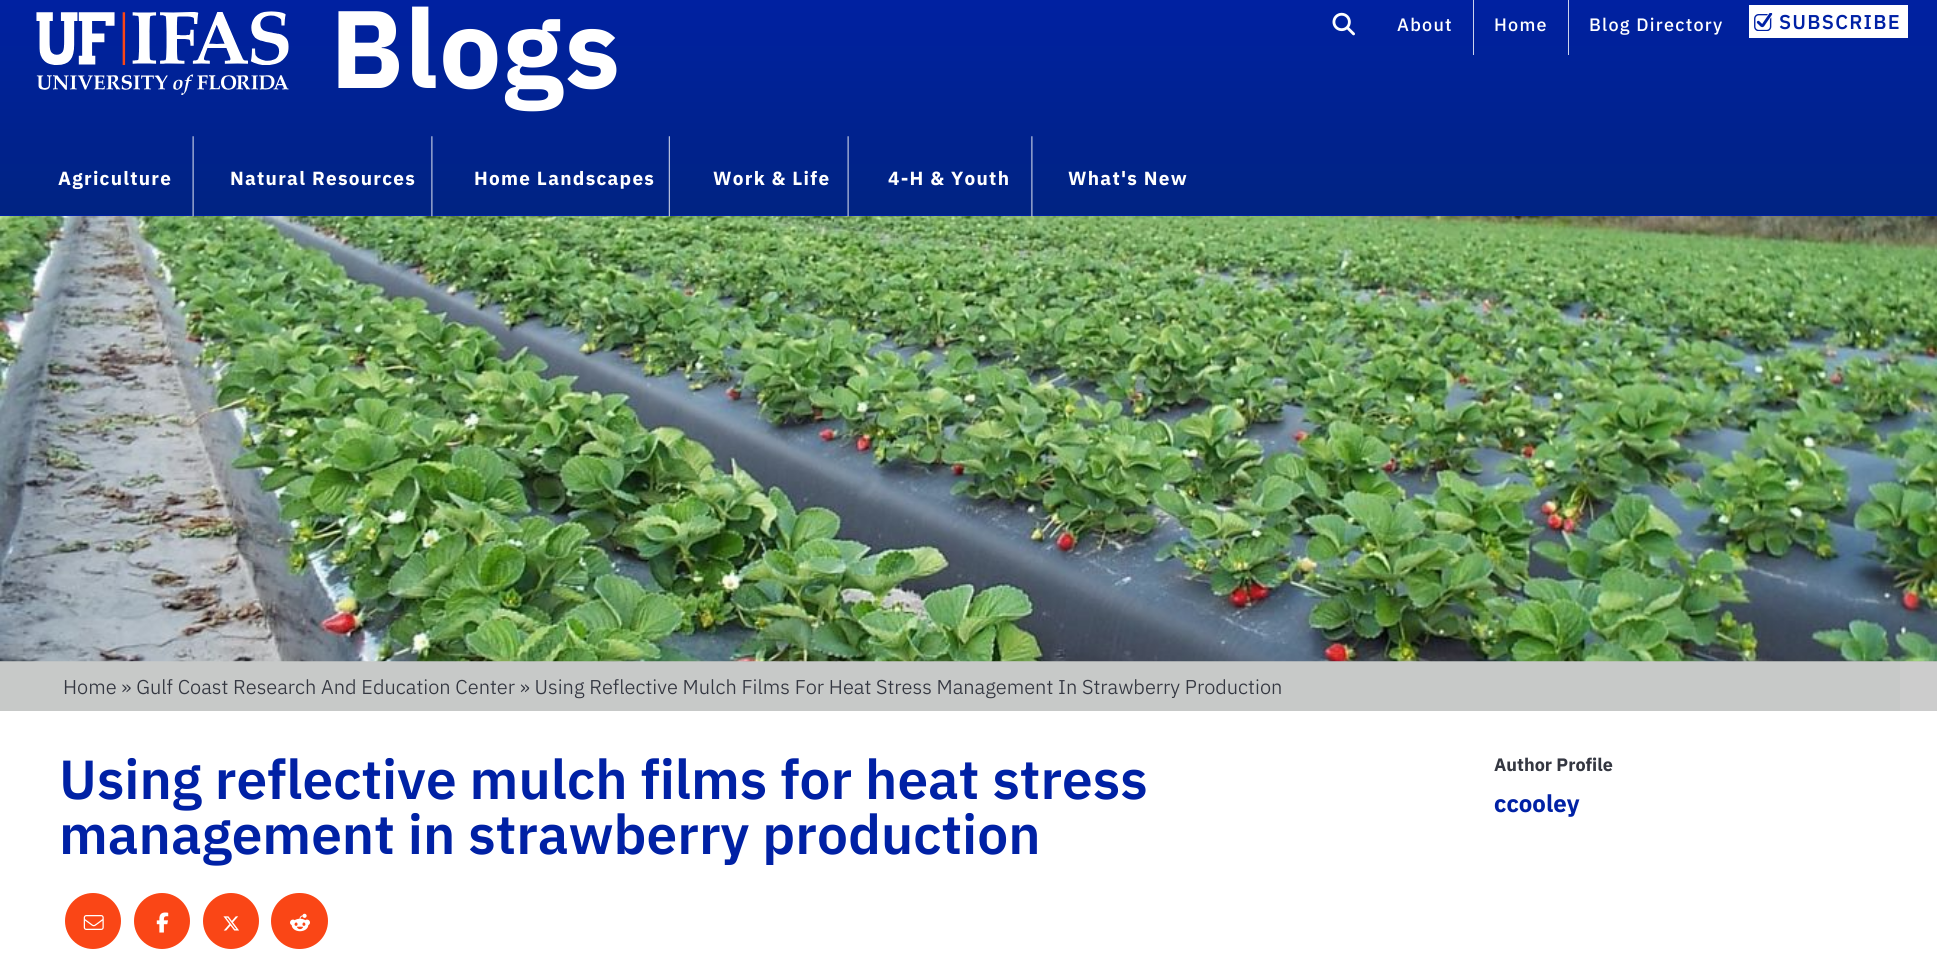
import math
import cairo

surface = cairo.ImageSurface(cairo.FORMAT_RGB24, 1937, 978)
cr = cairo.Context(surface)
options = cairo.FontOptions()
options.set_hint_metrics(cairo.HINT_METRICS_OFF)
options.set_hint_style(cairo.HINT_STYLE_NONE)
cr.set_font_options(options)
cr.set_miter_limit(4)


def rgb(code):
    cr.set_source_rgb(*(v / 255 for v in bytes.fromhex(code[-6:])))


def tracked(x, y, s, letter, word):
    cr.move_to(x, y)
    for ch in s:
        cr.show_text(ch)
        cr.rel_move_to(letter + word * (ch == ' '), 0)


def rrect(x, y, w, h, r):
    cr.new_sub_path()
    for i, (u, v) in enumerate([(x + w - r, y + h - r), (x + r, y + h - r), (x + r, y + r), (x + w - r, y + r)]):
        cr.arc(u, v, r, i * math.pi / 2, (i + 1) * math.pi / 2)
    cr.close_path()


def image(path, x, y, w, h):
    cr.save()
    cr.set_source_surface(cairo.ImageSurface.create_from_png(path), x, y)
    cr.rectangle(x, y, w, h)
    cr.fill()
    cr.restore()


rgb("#ffffff")
cr.paint()
gradient = cairo.LinearGradient(969, -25, 969, 215)
gradient.add_color_stop_rgba(0, 0, 0.129, 0.647, 1)
gradient.add_color_stop_rgba(1, 0, 0.137, 0.51, 1)
cr.set_source(gradient)
cr.rectangle(0, 0, 1937, 215)
cr.fill()
gradient = cairo.LinearGradient(969, -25, 969, 215)
gradient.add_color_stop_rgba(0, 0.8, 0.827, 0.929, 1)
gradient.add_color_stop_rgba(1, 0.8, 0.827, 0.902, 1)
cr.set_source(gradient)
cr.rectangle(1568, 0, 1, 55)
cr.fill()
cr.rectangle(1473, 0, 1, 55)
cr.fill()
image("img/1.png", 36, 11, 253, 84)
image("img/2.png", 1332, 12, 23, 24)
rgb("#ffffff")
cr.rectangle(1749, 5, 159, 33)
cr.fill()
image("img/3.png", 1754, 13, 19, 18)
rgb("#cccccc")
cr.rectangle(1900, 661, 37, 50)
cr.fill()
rgb("#c7c9c8")
cr.rectangle(0, 661, 1900, 50)
cr.fill()
image("img/9.png", 0, 216, 1937, 446)
rgb("#0021a5")
cr.rectangle(0, 215, 1937, 1)
cr.fill()
image("img/4.png", 192, 136, 2, 81)
image("img/5.png", 431, 136, 2, 81)
image("img/6.png", 668, 136, 2, 81)
image("img/7.png", 847, 136, 2, 81)
image("img/8.png", 1031, 136, 2, 81)
rgb("#fa4616")
cr.arc(93, 921, 28, 0, 2 * math.pi)
cr.fill()
image("img/10.png", 83, 915, 21, 15)
cr.arc(162, 921, 28, 0, 2 * math.pi)
cr.fill()
image("img/11.png", 156, 912, 13, 21)
cr.arc(231, 921, 28, 0, 2 * math.pi)
cr.fill()
image("img/12.png", 223, 916, 16, 15)
rrect(271, 893, 57, 56, 28)
cr.fill()
image("img/13.png", 290, 913, 20, 19)
cr.select_font_face("IBM Plex Sans", cairo.FONT_SLANT_NORMAL, cairo.FONT_WEIGHT_BOLD)
cr.set_font_size(110)
rgb("#ffffff")
tracked(330, 88, "Blogs", 1.25, 0)
cr.select_font_face("IBM Plex Sans Medium")
cr.set_font_size(18)
for x, y, s in [
    (1397, 31, "About"),
    (1494, 31, "Home"),
    (1589, 31, "Blog Directory"),
]:
    tracked(x, y, s, 1.25, 0)
cr.select_font_face("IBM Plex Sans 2 Medium")
cr.set_font_size(20)
rgb("#0021a5")
tracked(1779, 29, "SUBSCRIBE", 1.25, 0)
cr.select_font_face("IBM Plex Sans", cairo.FONT_SLANT_NORMAL, cairo.FONT_WEIGHT_BOLD)
cr.set_font_size(19)
rgb("#ffffff")
for x, y, s in [
    (58, 185, "Agriculture"),
    (230, 185, "Natural Resources"),
    (474, 185, "Home Landscapes"),
    (713, 185, "Work & Life"),
    (888, 185, "4-H & Youth"),
    (1068, 185, "What's New"),
]:
    tracked(x, y, s, 1.25, 0)
cr.select_font_face("IBM Plex Sans Light")
cr.set_font_size(20)
rgb("#343741")
cr.move_to(63, 694)
cr.show_text("Home » Gulf Coast Research And Education Center » Using Reflective Mulch Films For Heat Stress Management In Strawberry Production")
cr.select_font_face("IBM Plex Sans SemiBold")
cr.set_font_size(55)
rgb("#0021a5")
cr.move_to(59, 799)
cr.show_text("Using reflective mulch films for heat stress")
cr.move_to(59, 854)
cr.show_text("management in strawberry production")
cr.select_font_face("IBM Plex Sans", cairo.FONT_SLANT_NORMAL, cairo.FONT_WEIGHT_BOLD)
cr.set_font_size(18)
rgb("#343741")
cr.move_to(1494, 771)
cr.show_text("Author Profile")
cr.set_font_size(24)
rgb("#0021a5")
cr.move_to(1494, 812)
cr.show_text("ccooley")
surface.write_to_png("page.png")
